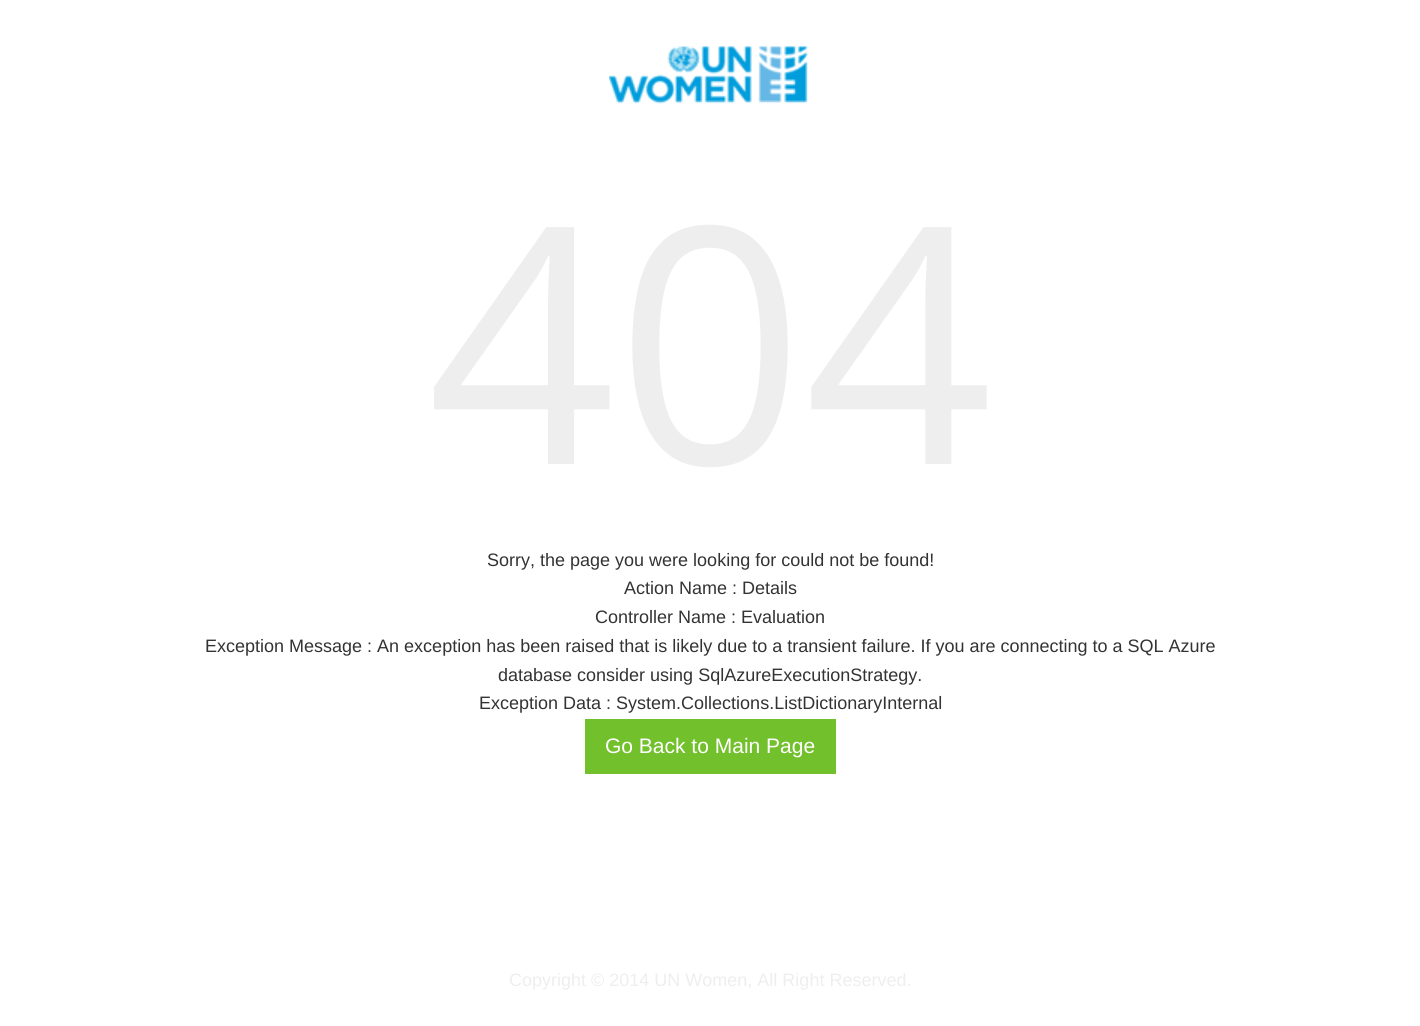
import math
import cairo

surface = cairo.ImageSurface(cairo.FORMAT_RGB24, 1420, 1026)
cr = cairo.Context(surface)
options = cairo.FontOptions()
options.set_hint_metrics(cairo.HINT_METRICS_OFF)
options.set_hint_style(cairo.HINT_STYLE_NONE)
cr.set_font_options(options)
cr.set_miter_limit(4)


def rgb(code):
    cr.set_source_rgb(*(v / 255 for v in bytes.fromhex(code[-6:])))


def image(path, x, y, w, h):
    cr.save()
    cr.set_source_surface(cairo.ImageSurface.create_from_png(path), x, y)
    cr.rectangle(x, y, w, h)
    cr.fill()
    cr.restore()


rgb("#ffffff")
cr.paint()
image("img/1.png", 609, 46, 199, 58)
rgb("#72c02c")
cr.rectangle(585, 719, 251, 55)
cr.fill()
cr.select_font_face("Open Sans")
cr.set_font_size(330)
rgb("#eeeeee")
cr.move_to(427, 464)
cr.show_text("404")
cr.select_font_face("Liberation Sans")
cr.set_font_size(18)
rgb("#333333")
for x, y, s in [
    (487, 566, "Sorry, the page you were looking for could not be found!"),
    (624, 594, "Action Name : Details"),
    (595, 623, "Controller Name : Evaluation"),
    (205, 652, "Exception Message : An exception has been raised that is likely due to a transient failure. If you are connecting to a SQL Azure"),
    (498, 681, "database consider using SqlAzureExecutionStrategy."),
    (479, 709, "Exception Data : System.Collections.ListDictionaryInternal"),
]:
    cr.move_to(x, y)
    cr.show_text(s)
cr.set_font_size(21)
rgb("#ffffff")
cr.move_to(605, 753)
cr.show_text("Go Back to Main Page")
cr.set_font_size(18)
rgb("#eeeeee")
cr.move_to(509, 986)
cr.show_text("Copyright © 2014 UN Women, All Right Reserved.")
surface.write_to_png("page.png")
